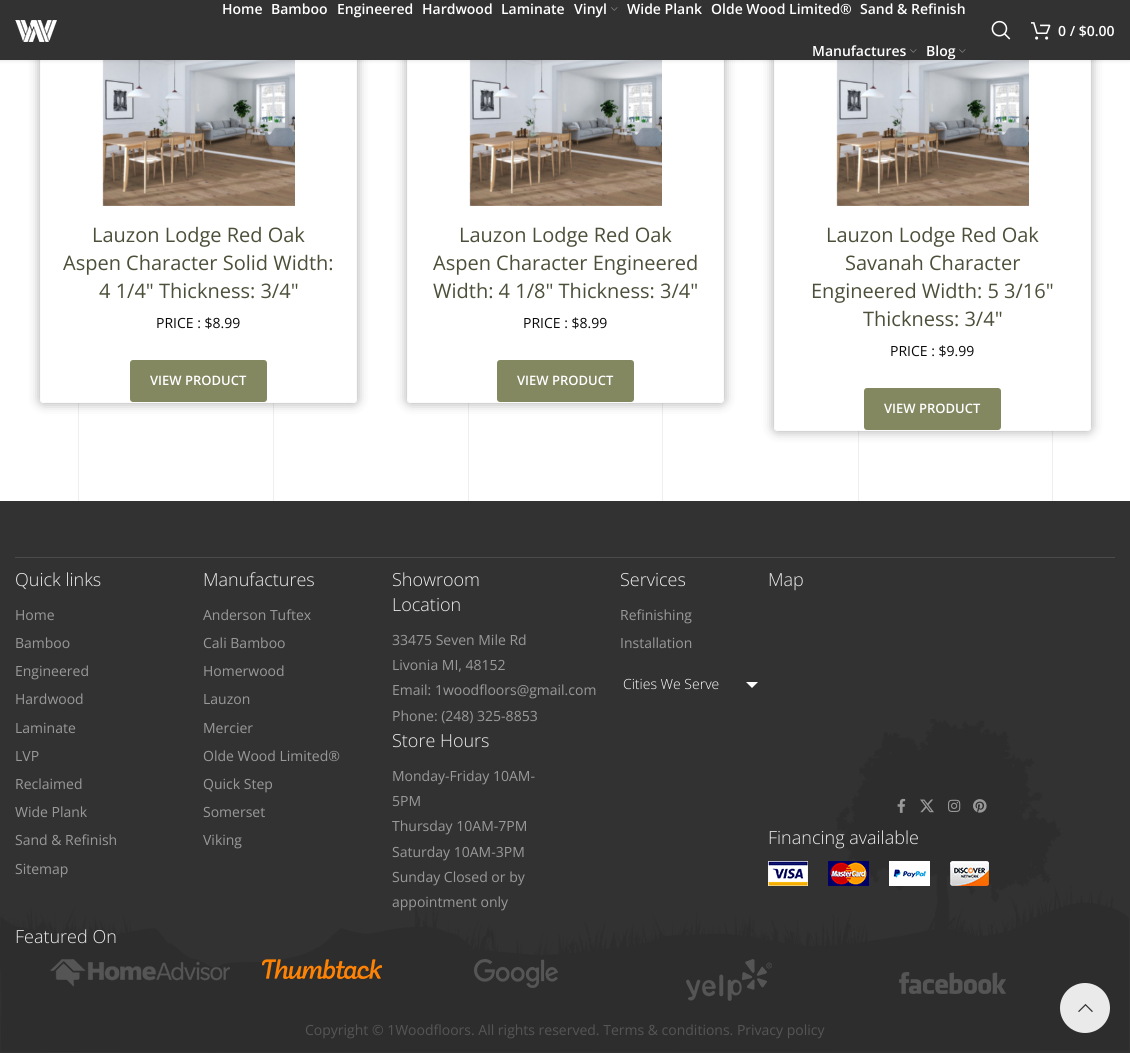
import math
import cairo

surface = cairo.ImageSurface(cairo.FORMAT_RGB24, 1130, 1053)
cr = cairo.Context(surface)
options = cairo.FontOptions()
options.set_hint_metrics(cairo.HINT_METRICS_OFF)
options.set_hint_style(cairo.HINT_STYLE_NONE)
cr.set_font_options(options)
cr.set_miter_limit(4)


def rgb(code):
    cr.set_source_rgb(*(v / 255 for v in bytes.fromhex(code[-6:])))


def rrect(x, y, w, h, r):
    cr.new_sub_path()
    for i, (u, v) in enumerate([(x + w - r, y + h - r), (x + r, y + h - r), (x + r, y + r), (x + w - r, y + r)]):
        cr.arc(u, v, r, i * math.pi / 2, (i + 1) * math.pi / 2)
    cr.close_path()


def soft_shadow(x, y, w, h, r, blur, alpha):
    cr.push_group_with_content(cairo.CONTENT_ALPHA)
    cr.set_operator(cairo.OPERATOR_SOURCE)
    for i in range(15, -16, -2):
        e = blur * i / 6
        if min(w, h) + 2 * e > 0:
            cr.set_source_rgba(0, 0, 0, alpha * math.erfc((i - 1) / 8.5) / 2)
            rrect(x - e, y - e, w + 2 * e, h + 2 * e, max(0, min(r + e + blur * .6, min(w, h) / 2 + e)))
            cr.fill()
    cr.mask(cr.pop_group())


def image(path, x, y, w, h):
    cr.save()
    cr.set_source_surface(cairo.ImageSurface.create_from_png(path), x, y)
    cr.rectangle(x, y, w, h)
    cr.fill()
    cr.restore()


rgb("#ffffff")
cr.paint()
image("img/5.png", 78, 403, 975, 98)
rgb("#000000")
soft_shadow(40, -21, 317, 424, 3, 6, 0.34)
rgb("#ffffff")
rrect(40.5, -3.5, 316, 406, 2.5)
cr.fill_preserve()
rgb("#fbfbfb")
cr.set_line_width(1)
cr.stroke()
image("img/6.png", 102, 60, 193, 146)
rgb("#000000")
soft_shadow(407, -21, 317, 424, 3, 6, 0.34)
rgb("#ffffff")
rrect(407.5, -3.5, 316, 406, 2.5)
cr.fill_preserve()
rgb("#fbfbfb")
cr.stroke()
image("img/7.png", 469, 60, 193, 146)
rgb("#000000")
soft_shadow(774, -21, 317, 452, 3, 6, 0.34)
rgb("#ffffff")
rrect(774.5, -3.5, 316, 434, 2.5)
cr.fill_preserve()
rgb("#fbfbfb")
cr.stroke()
image("img/6.png", 836, 60, 193, 146)
rgb("#000000")
soft_shadow(0, 1, 1130, 60, 0, 1.5, 0.1)
rgb("#323232")
cr.rectangle(0, 0, 1130, 60)
cr.fill()
image("img/1.png", 15, 20, 42, 22)
image("img/2.png", 611, 7, 7, 4)
image("img/2.png", 910, 49, 7, 4)
image("img/2.png", 959, 49, 7, 4)
image("img/3.png", 991, 20, 20, 20)
image("img/4.png", 1031, 22, 20, 18)
rgb("#838861")
rrect(130, 360, 137, 42, 3)
cr.fill()
rrect(497, 360, 137, 42, 3)
cr.fill()
rrect(864, 388, 137, 42, 3)
cr.fill()
rgb("#323232")
cr.rectangle(0, 501, 1130, 552)
cr.fill()
image("img/8.png", 0, 719, 1129, 333)
rgb("#4c4a4a")
cr.rectangle(15, 557, 1100, 1)
cr.fill()
rgb("#ffffff")
cr.new_path()
cr.move_to(746, 682)
cr.line_to(758, 682)
cr.line_to(752, 688)
cr.close_path()
cr.fill()
image("img/9.png", 897, 798, 9, 15)
image("img/10.png", 920, 799, 14, 14)
image("img/11.png", 948, 799, 13, 13)
image("img/12.png", 973, 799, 14, 14)
image("img/13.png", 768, 861, 221, 25)
image("img/14.png", 50, 959, 180, 28)
image("img/15.png", 262, 959, 120, 20)
image("img/16.png", 474, 959, 84, 29)
image("img/17.png", 686, 959, 86, 42)
image("img/18.png", 899, 972, 107, 22)
rgb("#eaeaea")
cr.arc(1085, 1008, 25, 0, 2 * math.pi)
cr.fill()
image("img/19.png", 1078, 1003, 15, 9)
cr.select_font_face("Open Sans SemiBold")
cr.set_font_size(14)
rgb("#ffffff")
for x, y, s in [
    (222, 14, "Home"),
    (271, 14, "Bamboo"),
    (337, 14, "Engineered"),
    (422, 14, "Hardwood"),
    (501, 14, "Laminate"),
    (574, 14, "Vinyl"),
    (627, 14, "Wide Plank"),
    (711, 14, "Olde Wood Limited®"),
    (860, 14, "Sand & Refinish"),
    (812, 56, "Manufactures"),
    (926, 56, "Blog"),
    (1058, 36, "0 / $0.00"),
]:
    cr.move_to(x, y)
    cr.show_text(s)
cr.select_font_face("Open Sans")
cr.set_font_size(20)
rgb("#4c4f39")
for x, y, s in [
    (92, 242, "Lauzon Lodge Red Oak"),
    (63, 270, "Aspen Character Solid Width:"),
    (99, 298, "4 1/4\" Thickness: 3/4\""),
]:
    cr.move_to(x, y)
    cr.show_text(s)
cr.set_font_size(14)
rgb("#0a0a0a")
cr.move_to(156, 328)
cr.show_text("PRICE : $8.99")
cr.select_font_face("Open Sans SemiBold")
cr.set_font_size(13)
rgb("#ffffff")
cr.move_to(150, 385)
cr.show_text("VIEW PRODUCT")
cr.select_font_face("Open Sans")
cr.set_font_size(20)
rgb("#4c4f39")
for x, y, s in [
    (459, 242, "Lauzon Lodge Red Oak"),
    (433, 270, "Aspen Character Engineered"),
    (433, 298, "Width: 4 1/8\" Thickness: 3/4\""),
]:
    cr.move_to(x, y)
    cr.show_text(s)
cr.set_font_size(14)
rgb("#0a0a0a")
cr.move_to(523, 328)
cr.show_text("PRICE : $8.99")
cr.select_font_face("Open Sans SemiBold")
cr.set_font_size(13)
rgb("#ffffff")
cr.move_to(517, 385)
cr.show_text("VIEW PRODUCT")
cr.select_font_face("Open Sans")
cr.set_font_size(20)
rgb("#4c4f39")
for x, y, s in [
    (826, 242, "Lauzon Lodge Red Oak"),
    (845, 270, "Savanah Character"),
    (811, 298, "Engineered Width: 5 3/16\""),
    (863, 326, "Thickness: 3/4\""),
]:
    cr.move_to(x, y)
    cr.show_text(s)
cr.set_font_size(14)
rgb("#0a0a0a")
cr.move_to(890, 356)
cr.show_text("PRICE : $9.99")
cr.select_font_face("Open Sans SemiBold")
cr.set_font_size(13)
rgb("#ffffff")
cr.move_to(884, 413)
cr.show_text("VIEW PRODUCT")
cr.select_font_face("Open Sans Light")
cr.set_font_size(18)
rgb("#eeeeee")
cr.move_to(15, 586)
cr.show_text("Quick links")
cr.select_font_face("Open Sans")
cr.set_font_size(14)
rgb("#999999")
for x, y, s in [
    (15, 620, "Home"),
    (15, 648, "Bamboo"),
    (15, 676, "Engineered"),
    (15, 704, "Hardwood"),
    (15, 733, "Laminate"),
    (15, 761, "LVP"),
    (15, 789, "Reclaimed"),
    (15, 817, "Wide Plank"),
    (15, 845, "Sand & Refinish"),
    (15, 874, "Sitemap"),
]:
    cr.move_to(x, y)
    cr.show_text(s)
cr.select_font_face("Open Sans Light")
cr.set_font_size(18)
rgb("#eeeeee")
cr.move_to(203, 586)
cr.show_text("Manufactures")
cr.select_font_face("Open Sans")
cr.set_font_size(14)
rgb("#999999")
for x, y, s in [
    (203, 620, "Anderson Tuftex"),
    (203, 648, "Cali Bamboo"),
    (203, 676, "Homerwood"),
    (203, 704, "Lauzon"),
    (203, 733, "Mercier"),
    (203, 761, "Olde Wood Limited®"),
    (203, 789, "Quick Step"),
    (203, 817, "Somerset"),
    (203, 845, "Viking"),
]:
    cr.move_to(x, y)
    cr.show_text(s)
cr.select_font_face("Open Sans Light")
cr.set_font_size(18)
rgb("#eeeeee")
cr.move_to(392, 586)
cr.show_text("Showroom")
cr.move_to(392, 611)
cr.show_text("Location")
cr.select_font_face("Open Sans")
cr.set_font_size(14)
rgb("#999999")
for x, y, s in [
    (392, 645, "33475 Seven Mile Rd"),
    (392, 670, "Livonia MI, 48152"),
    (392, 695, "Email: 1woodfloors@gmail.com"),
    (392, 721, "Phone: (248) 325-8853"),
]:
    cr.move_to(x, y)
    cr.show_text(s)
cr.select_font_face("Open Sans Light")
cr.set_font_size(18)
rgb("#eeeeee")
cr.move_to(392, 747)
cr.show_text("Store Hours")
cr.select_font_face("Open Sans")
cr.set_font_size(14)
rgb("#999999")
for x, y, s in [
    (392, 781, "Monday-Friday 10AM-"),
    (392, 806, "5PM"),
    (392, 831, "Thursday 10AM-7PM"),
    (392, 857, "Saturday 10AM-3PM"),
    (392, 882, "Sunday Closed or by"),
    (392, 907, "appointment only"),
]:
    cr.move_to(x, y)
    cr.show_text(s)
cr.select_font_face("Open Sans Light")
cr.set_font_size(18)
rgb("#eeeeee")
cr.move_to(620, 586)
cr.show_text("Services")
cr.select_font_face("Open Sans")
cr.set_font_size(14)
rgb("#999999")
cr.move_to(620, 620)
cr.show_text("Refinishing")
cr.move_to(620, 648)
cr.show_text("Installation")
cr.select_font_face("Open Sans Light")
rgb("#ffffff")
cr.move_to(623, 689)
cr.show_text("Cities We Serve")
cr.set_font_size(18)
rgb("#eeeeee")
for x, y, s in [
    (768, 586, "Map"),
    (768, 844, "Financing available"),
    (15, 943, "Featured On"),
]:
    cr.move_to(x, y)
    cr.show_text(s)
cr.select_font_face("Open Sans")
cr.set_font_size(14)
rgb("#555555")
cr.move_to(305, 1035)
cr.show_text("Copyright © 1Woodfloors. All rights reserved. Terms & conditions. Privacy policy")
surface.write_to_png("page.png")
